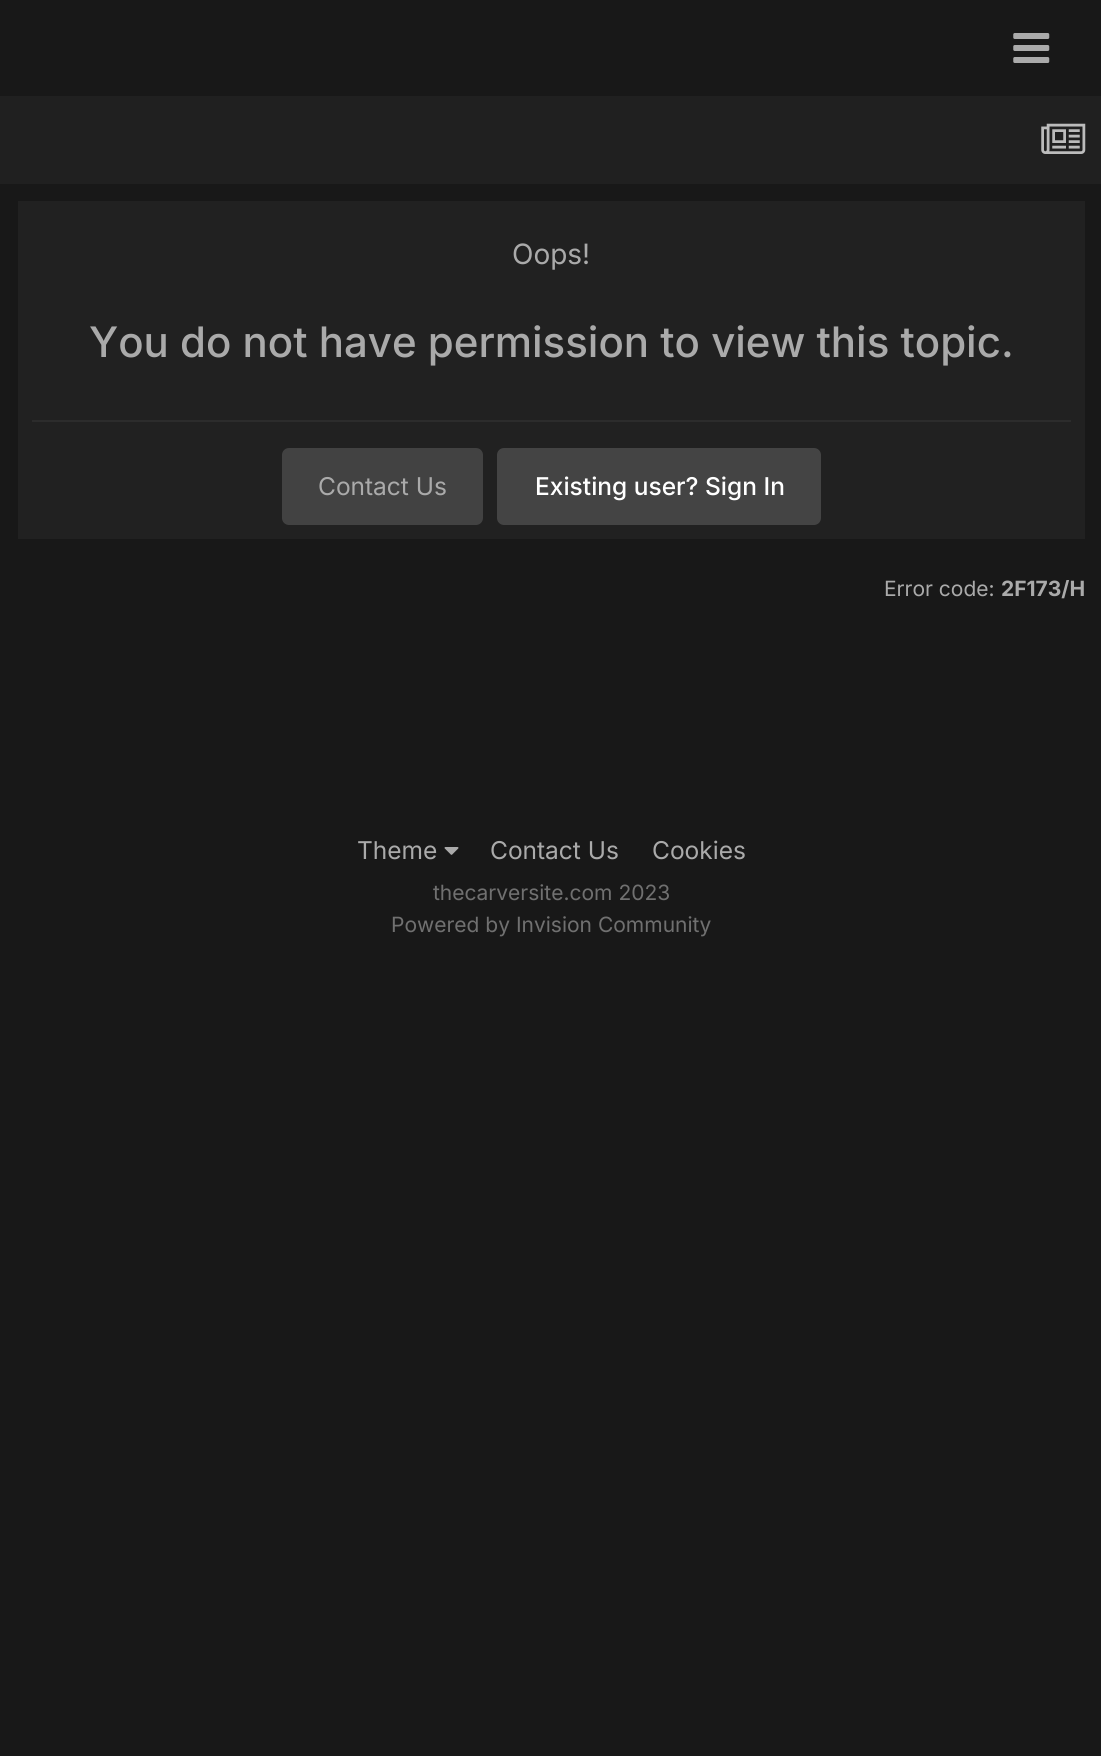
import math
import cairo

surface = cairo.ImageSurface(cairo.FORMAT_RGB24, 1101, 1756)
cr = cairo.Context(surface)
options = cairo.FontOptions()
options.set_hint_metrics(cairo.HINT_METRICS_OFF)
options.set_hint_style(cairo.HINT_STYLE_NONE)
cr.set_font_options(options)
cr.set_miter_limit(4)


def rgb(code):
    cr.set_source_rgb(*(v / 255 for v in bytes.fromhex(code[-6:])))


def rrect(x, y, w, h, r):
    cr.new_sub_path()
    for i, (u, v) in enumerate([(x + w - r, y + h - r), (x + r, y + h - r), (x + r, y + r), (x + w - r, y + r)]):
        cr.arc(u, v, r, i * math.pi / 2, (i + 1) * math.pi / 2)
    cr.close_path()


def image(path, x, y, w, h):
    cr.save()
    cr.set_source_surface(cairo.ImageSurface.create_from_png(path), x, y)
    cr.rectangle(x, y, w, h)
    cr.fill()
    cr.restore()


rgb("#181818")
cr.paint()
image("img/1.png", 1013, 33, 37, 30)
rgb("#202020")
cr.rectangle(0, 96, 1101, 88)
cr.fill()
image("img/2.png", 1041, 123, 45, 31)
rgb("#212121")
cr.rectangle(18, 201, 1067, 338)
cr.fill()
rgb("#2c2c2c")
cr.rectangle(32, 420, 1039, 2)
cr.fill()
rgb("#424242")
rrect(282, 448, 201, 77, 7)
cr.fill()
rgb("#444444")
rrect(497, 448, 324, 77, 7)
cr.fill()
image("img/3.png", 444, 847, 15, 8)
cr.select_font_face("Inter")
cr.set_font_size(28)
rgb("#aaaaaa")
cr.move_to(512, 264)
cr.show_text("Oops!")
cr.select_font_face("Inter Medium")
cr.set_font_size(42)
cr.move_to(89, 357)
cr.show_text("You do not have permission to view this topic.")
cr.select_font_face("Inter")
cr.set_font_size(24.5)
cr.move_to(318, 495)
cr.show_text("Contact Us")
cr.select_font_face("Inter Medium")
rgb("#ffffff")
cr.move_to(535, 495)
cr.show_text("Existing user? Sign In")
cr.select_font_face("Inter")
cr.set_font_size(21)
rgb("#aaaaaa")
cr.move_to(884, 596)
cr.show_text("Error code:")
cr.select_font_face("Inter", cairo.FONT_SLANT_NORMAL, cairo.FONT_WEIGHT_BOLD)
cr.move_to(1001, 596)
cr.show_text("2F173/H")
cr.select_font_face("Inter")
cr.set_font_size(24.5)
for x, y, s in [
    (357, 859, "Theme"),
    (490, 859, "Contact Us"),
    (652, 859, "Cookies"),
]:
    cr.move_to(x, y)
    cr.show_text(s)
cr.set_font_size(21)
rgb("#707070")
cr.move_to(433, 900)
cr.show_text("thecarversite.com 2023")
cr.move_to(391, 932)
cr.show_text("Powered by Invision Community")
surface.write_to_png("page.png")
